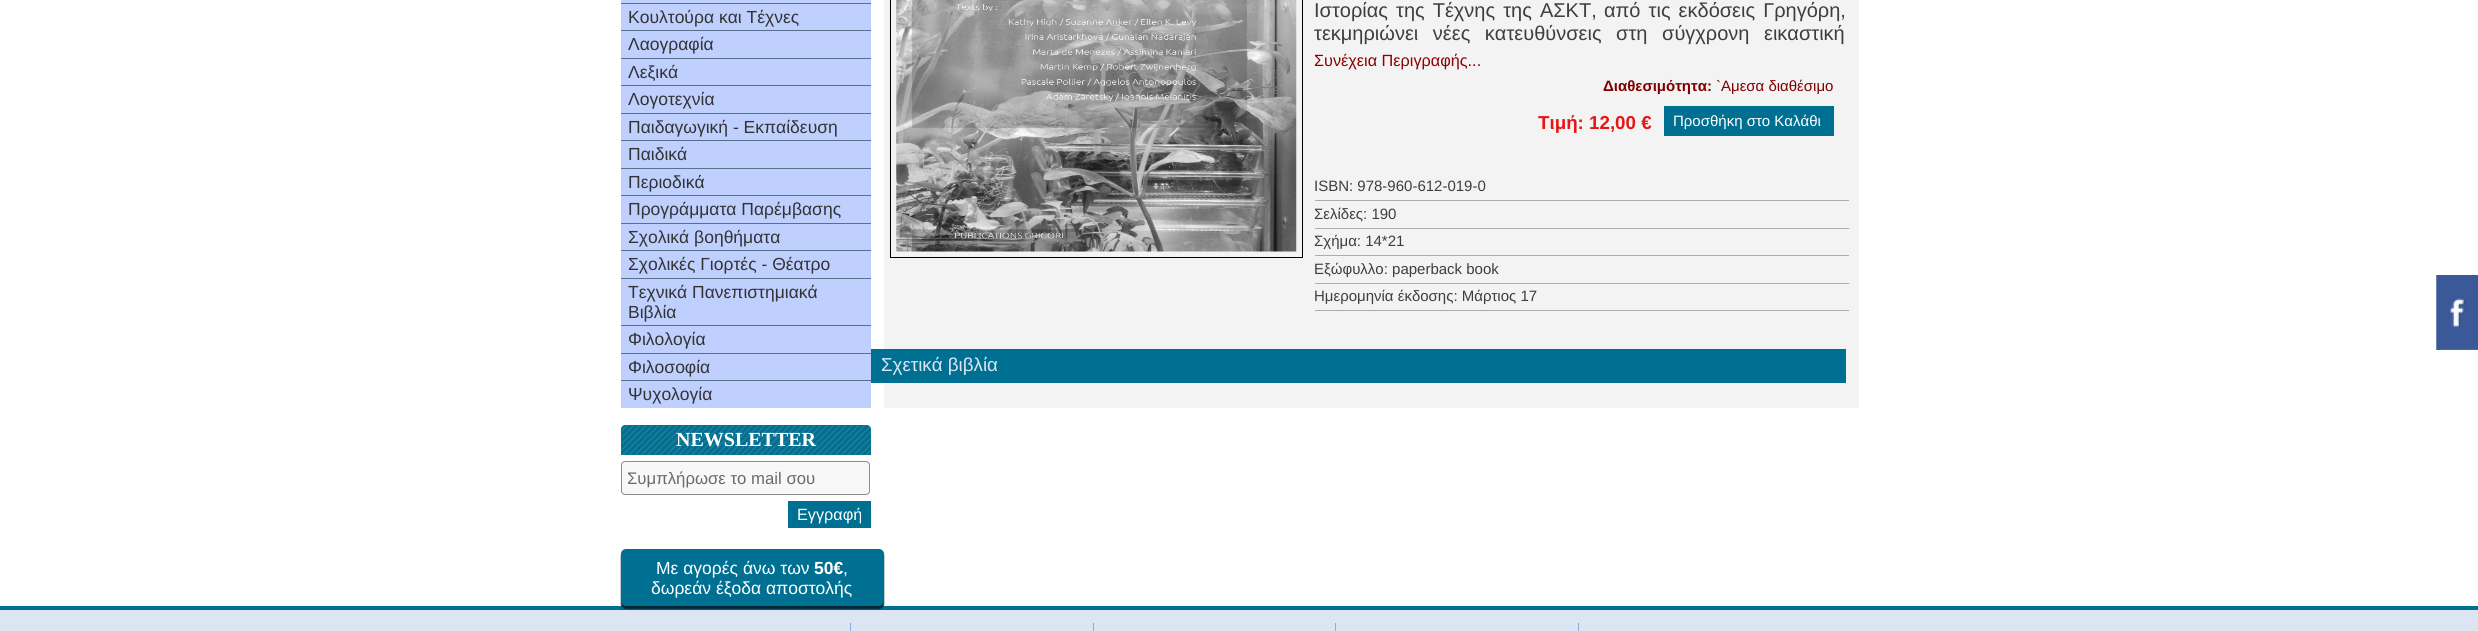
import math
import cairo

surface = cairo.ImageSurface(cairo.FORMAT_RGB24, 2478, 631)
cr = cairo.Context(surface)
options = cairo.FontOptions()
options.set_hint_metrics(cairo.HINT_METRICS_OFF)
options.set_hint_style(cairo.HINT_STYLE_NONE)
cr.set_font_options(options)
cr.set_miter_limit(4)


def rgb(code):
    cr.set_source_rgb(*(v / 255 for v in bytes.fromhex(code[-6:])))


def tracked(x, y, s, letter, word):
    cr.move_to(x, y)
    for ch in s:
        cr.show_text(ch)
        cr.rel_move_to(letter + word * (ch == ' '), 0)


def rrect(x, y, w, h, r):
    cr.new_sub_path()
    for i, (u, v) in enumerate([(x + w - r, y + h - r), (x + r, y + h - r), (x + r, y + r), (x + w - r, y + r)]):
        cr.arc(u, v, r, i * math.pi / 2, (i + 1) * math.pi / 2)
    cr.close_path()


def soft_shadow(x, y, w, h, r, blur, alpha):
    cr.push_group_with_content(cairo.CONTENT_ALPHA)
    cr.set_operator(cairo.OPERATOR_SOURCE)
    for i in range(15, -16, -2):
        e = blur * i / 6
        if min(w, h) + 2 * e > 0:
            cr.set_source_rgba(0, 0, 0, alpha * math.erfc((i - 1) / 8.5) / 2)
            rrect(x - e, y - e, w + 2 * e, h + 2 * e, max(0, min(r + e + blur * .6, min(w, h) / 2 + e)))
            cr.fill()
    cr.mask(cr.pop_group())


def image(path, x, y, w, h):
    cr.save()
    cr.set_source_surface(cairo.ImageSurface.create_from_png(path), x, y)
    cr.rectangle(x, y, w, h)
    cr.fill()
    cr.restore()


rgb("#ffffff")
cr.paint()
for x, y, w, h, color in [
    (621, 0, 250, 408, "#bfd0ff"),
    (621, 3, 250, 1, "#56708d"),
    (621, 30, 250, 1, "#56708d"),
    (621, 58, 250, 1, "#56708d"),
    (621, 85, 250, 1, "#56708d"),
    (621, 113, 250, 1, "#56708d"),
    (621, 140, 250, 1, "#56708d"),
    (621, 168, 250, 1, "#56708d"),
    (621, 195, 250, 1, "#56708d"),
    (621, 223, 250, 1, "#56708d"),
    (621, 250, 250, 1, "#56708d"),
    (621, 278, 250, 1, "#56708d"),
    (621, 325, 250, 1, "#56708d"),
    (621, 353, 250, 1, "#56708d"),
    (621, 380, 250, 1, "#56708d"),
]:
    rgb(color)
    cr.rectangle(x, y, w, h)
    cr.fill()
rgb("#007092")
cr.new_path()
cr.move_to(625, 425)
cr.line_to(867, 425)
cr.curve_to(869, 425, 871, 427, 871, 429)
cr.line_to(871, 455)
cr.line_to(621, 455)
cr.line_to(621, 429)
cr.curve_to(621, 427, 623, 425, 625, 425)
cr.close_path()
cr.fill()
image("img/1.png", 621, 425, 250, 30)
rgb("#f8f8f8")
rrect(621.5, 461.5, 248, 33, 3.5)
cr.fill_preserve()
rgb("#8b8b8b")
cr.set_line_width(1)
cr.stroke()
for x, y, w, h, color in [
    (788, 501, 83, 27, "#007092"),
    (0, 610, 2478, 21, "#dce6f2"),
    (0, 606, 2478, 4, "#007092"),
]:
    rgb(color)
    cr.rectangle(x, y, w, h)
    cr.fill()
rgb("#002935")
soft_shadow(621, 551, 263, 58, 5, 0.5, 1)
rgb("#007092")
rrect(621, 549, 263, 57, 5)
cr.fill()
rgb("#f3f3f3")
cr.rectangle(884, 0, 975, 408)
cr.fill()
cr.rectangle(890.5, -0.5, 412, 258)
rgb("#000000")
cr.stroke()
image("img/2.png", 896, 0, 401, 252)
for x, y, w, h, color in [
    (1664, 106, 170, 30, "#007092"),
    (1315, 200, 534, 1, "#acacac"),
    (1315, 228, 534, 1, "#acacac"),
    (1315, 255, 534, 1, "#acacac"),
    (1315, 283, 534, 1, "#acacac"),
    (1315, 310, 534, 1, "#acacac"),
    (871, 349, 975, 34, "#007092"),
]:
    rgb(color)
    cr.rectangle(x, y, w, h)
    cr.fill()
image("img/3.png", 2436, 275, 42, 75)
for x, y, w, h, color in [
    (850, 623, 1, 8, "#8eafd5"),
    (1093, 623, 1, 8, "#8eafd5"),
    (1335, 623, 1, 8, "#8eafd5"),
    (1578, 623, 1, 8, "#8eafd5"),
]:
    rgb(color)
    cr.rectangle(x, y, w, h)
    cr.fill()
cr.select_font_face("Liberation Sans")
cr.set_font_size(17.5)
rgb("#333333")
for x, y, s in [
    (628, 23, "Κουλτούρα και Τέχνες"),
    (628, 50, "Λαογραφία"),
    (628, 78, "Λεξικά"),
    (628, 105, "Λογοτεχνία"),
    (628, 133, "Παιδαγωγική - Εκπαίδευση"),
    (628, 160, "Παιδικά"),
    (628, 188, "Περιοδικά"),
    (628, 215, "Προγράμματα Παρέμβασης"),
    (628, 243, "Σχολικά βοηθήματα"),
    (628, 270, "Σχολικές Γιορτές - Θέατρο"),
    (628, 298, "Τεχνικά Πανεπιστημιακά"),
    (628, 318, "Βιβλία"),
    (628, 345, "Φιλολογία"),
    (628, 373, "Φιλοσοφία"),
    (628, 400, "Ψυχολογία"),
]:
    cr.move_to(x, y)
    cr.show_text(s)
cr.select_font_face("Liberation Serif", cairo.FONT_SLANT_NORMAL, cairo.FONT_WEIGHT_BOLD)
cr.set_font_size(20)
rgb("#ffffff")
cr.move_to(676, 446)
cr.show_text("NEWSLETTER")
cr.save()
cr.rectangle(628, 469, 238, 19)
cr.clip()
cr.select_font_face("Liberation Sans")
cr.set_font_size(16.75)
rgb("#6a6a6a")
cr.move_to(627, 484)
cr.show_text("Συμπλήρωσε το mail σου")
cr.restore()
cr.select_font_face("Liberation Sans")
cr.set_font_size(16.25)
cr.move_to(797, 520)
cr.show_text("Εγγραφή")
cr.set_font_size(17.5)
cr.move_to(656, 574)
cr.show_text("Με αγορές άνω των")
cr.select_font_face("Liberation Sans", cairo.FONT_SLANT_NORMAL, cairo.FONT_WEIGHT_BOLD)
cr.move_to(814, 574)
cr.show_text("50€")
cr.select_font_face("Liberation Sans")
cr.move_to(843, 574)
cr.show_text(",")
cr.move_to(651, 594)
cr.show_text("δωρεάν έξοδα αποστολής")
cr.set_font_size(20)
rgb("#3e3e3e")
tracked(1314, 17, "Ιστορίας της Τέχνης της ΑΣΚΤ,", 0, 2.5)
tracked(1604, 17, "από τις εκδόσεις Γρηγόρη,", 0, 2.5)
tracked(1314, 40, "τεκμηριώνει νέες κατευθύνσεις στη σύγχρονη εικαστική", 0, 9)
cr.set_font_size(16.25)
rgb("#8b0000")
cr.move_to(1314, 66)
cr.show_text("Συνέχεια Περιγραφής...")
cr.select_font_face("Liberation Sans", cairo.FONT_SLANT_NORMAL, cairo.FONT_WEIGHT_BOLD)
cr.set_font_size(15)
rgb("#800000")
cr.move_to(1603, 91)
cr.show_text("Διαθεσιμότητα:")
cr.select_font_face("Liberation Sans")
cr.move_to(1716, 91)
cr.show_text("`Αμεσα διαθέσιμο")
cr.select_font_face("Liberation Sans", cairo.FONT_SLANT_NORMAL, cairo.FONT_WEIGHT_BOLD)
cr.set_font_size(18.75)
rgb("#e71616")
cr.move_to(1538, 129)
cr.show_text("Τιμή: 12,00 €")
cr.select_font_face("Liberation Sans")
cr.set_font_size(15)
rgb("#ffffff")
cr.move_to(1673, 126)
cr.show_text("Προσθήκη στο Καλάθι")
rgb("#3e3e3e")
for x, y, s in [
    (1314, 191, "ISBN: 978-960-612-019-0"),
    (1314, 219, "Σελίδες: 190"),
    (1314, 246, "Σχήμα: 14*21"),
    (1314, 274, "Εξώφυλλο: paperback book"),
    (1314, 301, "Ημερομηνία έκδοσης: Μάρτιος 17"),
]:
    cr.move_to(x, y)
    cr.show_text(s)
cr.set_font_size(18.75)
rgb("#dce6f2")
cr.move_to(881, 371)
cr.show_text("Σχετικά βιβλία")
surface.write_to_png("page.png")
